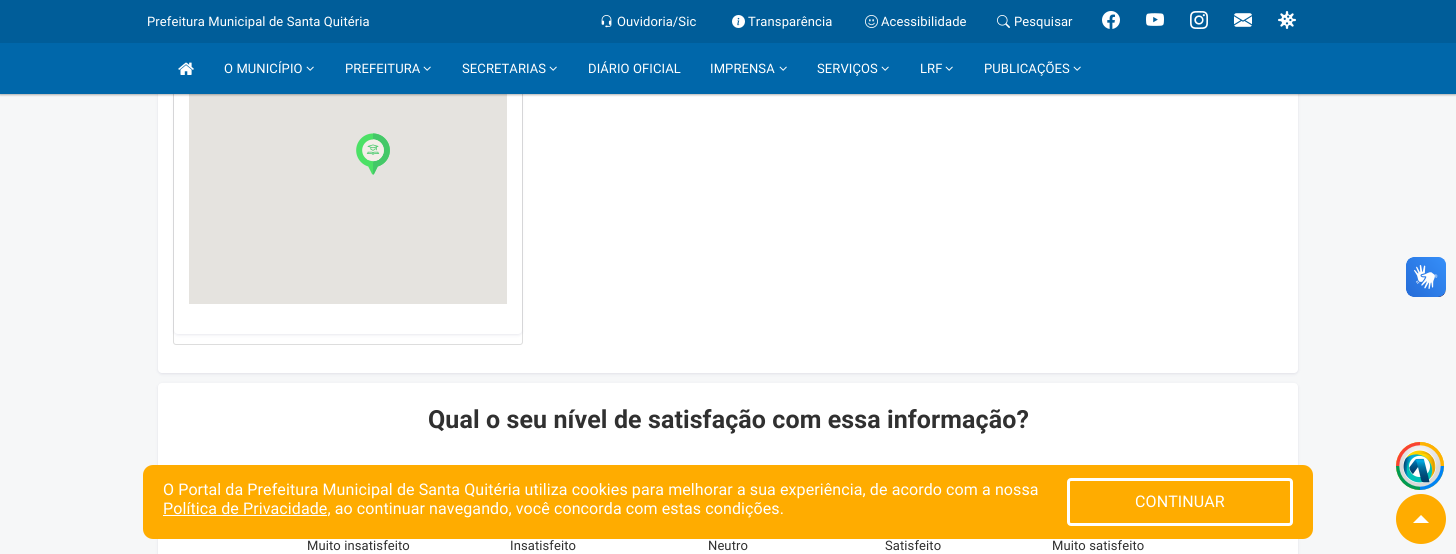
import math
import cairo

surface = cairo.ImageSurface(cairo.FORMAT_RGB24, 1456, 554)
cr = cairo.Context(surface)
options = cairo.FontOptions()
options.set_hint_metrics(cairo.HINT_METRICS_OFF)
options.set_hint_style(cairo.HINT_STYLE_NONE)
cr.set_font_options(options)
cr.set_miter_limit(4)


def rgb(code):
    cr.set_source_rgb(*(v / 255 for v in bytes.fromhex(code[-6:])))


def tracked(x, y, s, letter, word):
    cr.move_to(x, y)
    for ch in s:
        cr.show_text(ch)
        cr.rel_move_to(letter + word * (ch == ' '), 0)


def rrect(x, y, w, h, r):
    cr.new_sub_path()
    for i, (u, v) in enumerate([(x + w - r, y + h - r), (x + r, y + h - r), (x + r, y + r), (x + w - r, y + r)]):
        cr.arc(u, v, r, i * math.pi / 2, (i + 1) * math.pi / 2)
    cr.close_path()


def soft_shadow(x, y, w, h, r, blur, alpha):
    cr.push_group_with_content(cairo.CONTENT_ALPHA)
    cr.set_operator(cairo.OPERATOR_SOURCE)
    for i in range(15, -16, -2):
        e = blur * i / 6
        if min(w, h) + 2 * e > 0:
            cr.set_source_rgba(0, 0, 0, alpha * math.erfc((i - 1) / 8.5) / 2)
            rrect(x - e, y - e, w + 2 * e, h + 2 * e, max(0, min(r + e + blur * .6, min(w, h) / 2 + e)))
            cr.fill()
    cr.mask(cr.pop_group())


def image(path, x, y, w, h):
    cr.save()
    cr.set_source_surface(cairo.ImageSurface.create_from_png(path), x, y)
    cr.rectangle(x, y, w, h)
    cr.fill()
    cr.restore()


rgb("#f6f7f8")
cr.paint()
rgb("#030047")
soft_shadow(158, -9, 1140, 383, 4, 1.5, 0.09)
rgb("#ffffff")
rrect(158, -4, 1140, 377, 4)
cr.fill()
rrect(173.5, 43.5, 349, 301, 2.5)
rgb("#dddddd")
cr.set_line_width(1)
cr.stroke()
rgb("#030047")
soft_shadow(174, 45, 348, 290, 4, 1.5, 0.09)
rgb("#ffffff")
rrect(174, 44, 348, 290, 4)
cr.fill()
rgb("#e5e3df")
cr.rectangle(189, 94, 318, 210)
cr.fill()
image("img/1.png", 356, 133, 34, 42)
rgb("#000000")
soft_shadow(0, 1, 1456, 94, 0, 1, 0.3)
rgb("#005d99")
cr.rectangle(0, 0, 1456, 43)
cr.fill()
image("img/2.png", 601, 15, 11, 13)
image("img/3.png", 732, 15, 13, 13)
image("img/4.png", 865, 15, 13, 13)
image("img/5.png", 997, 15, 13, 13)
image("img/6.png", 1102, 11, 18, 18)
image("img/7.png", 1146, 13, 18, 13)
image("img/8.png", 1190, 11, 18, 18)
image("img/9.png", 1234, 13, 18, 14)
image("img/10.png", 1278, 11, 18, 18)
rgb("#0067aa")
cr.rectangle(0, 43, 1456, 51)
cr.fill()
image("img/11.png", 178, 62, 16, 13)
image("img/12.png", 306, 66, 8, 5)
image("img/12.png", 423, 66, 8, 5)
image("img/12.png", 549, 66, 8, 5)
image("img/12.png", 779, 66, 8, 5)
image("img/12.png", 881, 66, 8, 5)
image("img/12.png", 945, 66, 8, 5)
image("img/12.png", 1073, 66, 8, 5)
image("img/13.png", 1406, 257, 40, 40)
image("img/14.png", 1406, 257, 40, 40)
rgb("#030047")
soft_shadow(158, 384, 1140, 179, 4, 1.5, 0.09)
rgb("#ffffff")
rrect(158, 383, 1140, 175, 4)
cr.fill()
image("img/15.png", 1396, 442, 48, 48)
rgb("#ffac00")
rrect(143, 465, 1170, 74, 10)
cr.fill()
rgb("#ffffff")
cr.rectangle(163, 515, 164, 1)
cr.fill()
rrect(1068.5, 479.5, 223, 45, 2.5)
cr.set_line_width(3)
cr.stroke()
rgb("#ffac00")
cr.arc(1421, 519, 25, 0, 2 * math.pi)
cr.fill()
rgb("#ffffff")
cr.new_path()
cr.move_to(1429, 523)
cr.line_to(1413, 523)
cr.line_to(1421, 515)
cr.close_path()
cr.fill()
cr.select_font_face("Roboto")
cr.set_font_size(13)
for x, y, s in [
    (147, 26, "Prefeitura Municipal de Santa Quitéria"),
    (617, 26, "Ouvidoria/Sic"),
    (748, 26, "Transparência"),
    (881, 26, "Acessibilidade"),
    (1014, 26, "Pesquisar"),
    (224, 73, "O MUNICÍPIO"),
    (345, 73, "PREFEITURA"),
    (462, 73, "SECRETARIAS"),
    (588, 73, "DIÁRIO OFICIAL"),
    (710, 73, "IMPRENSA"),
    (817, 73, "SERVIÇOS"),
    (920, 73, "LRF"),
    (984, 73, "PUBLICAÇÕES"),
]:
    tracked(x, y, s, 0.1, 0)
cr.select_font_face("Roboto", cairo.FONT_SLANT_NORMAL, cairo.FONT_WEIGHT_BOLD)
cr.set_font_size(25)
rgb("#303030")
tracked(428, 428, "Qual o seu nível de satisfação com essa informação?", 0.1, 0)
cr.select_font_face("Roboto")
cr.set_font_size(13)
for x, y, s in [
    (307, 550, "Muito insatisfeito"),
    (510, 550, "Insatisfeito"),
    (708, 550, "Neutro"),
    (885, 550, "Satisfeito"),
    (1052, 550, "Muito satisfeito"),
]:
    tracked(x, y, s, 0.1, 0)
cr.set_font_size(16)
rgb("#ffffff")
for x, y, s in [
    (163, 495, "O Portal da Prefeitura Municipal de Santa Quitéria utiliza cookies para melhorar a sua experiência, de acordo com a nossa"),
    (163, 514, "Política de Privacidade, ao continuar navegando, você concorda com estas condições."),
    (1135, 507, "CONTINUAR"),
]:
    tracked(x, y, s, 0.1, 0)
surface.write_to_png("page.png")
